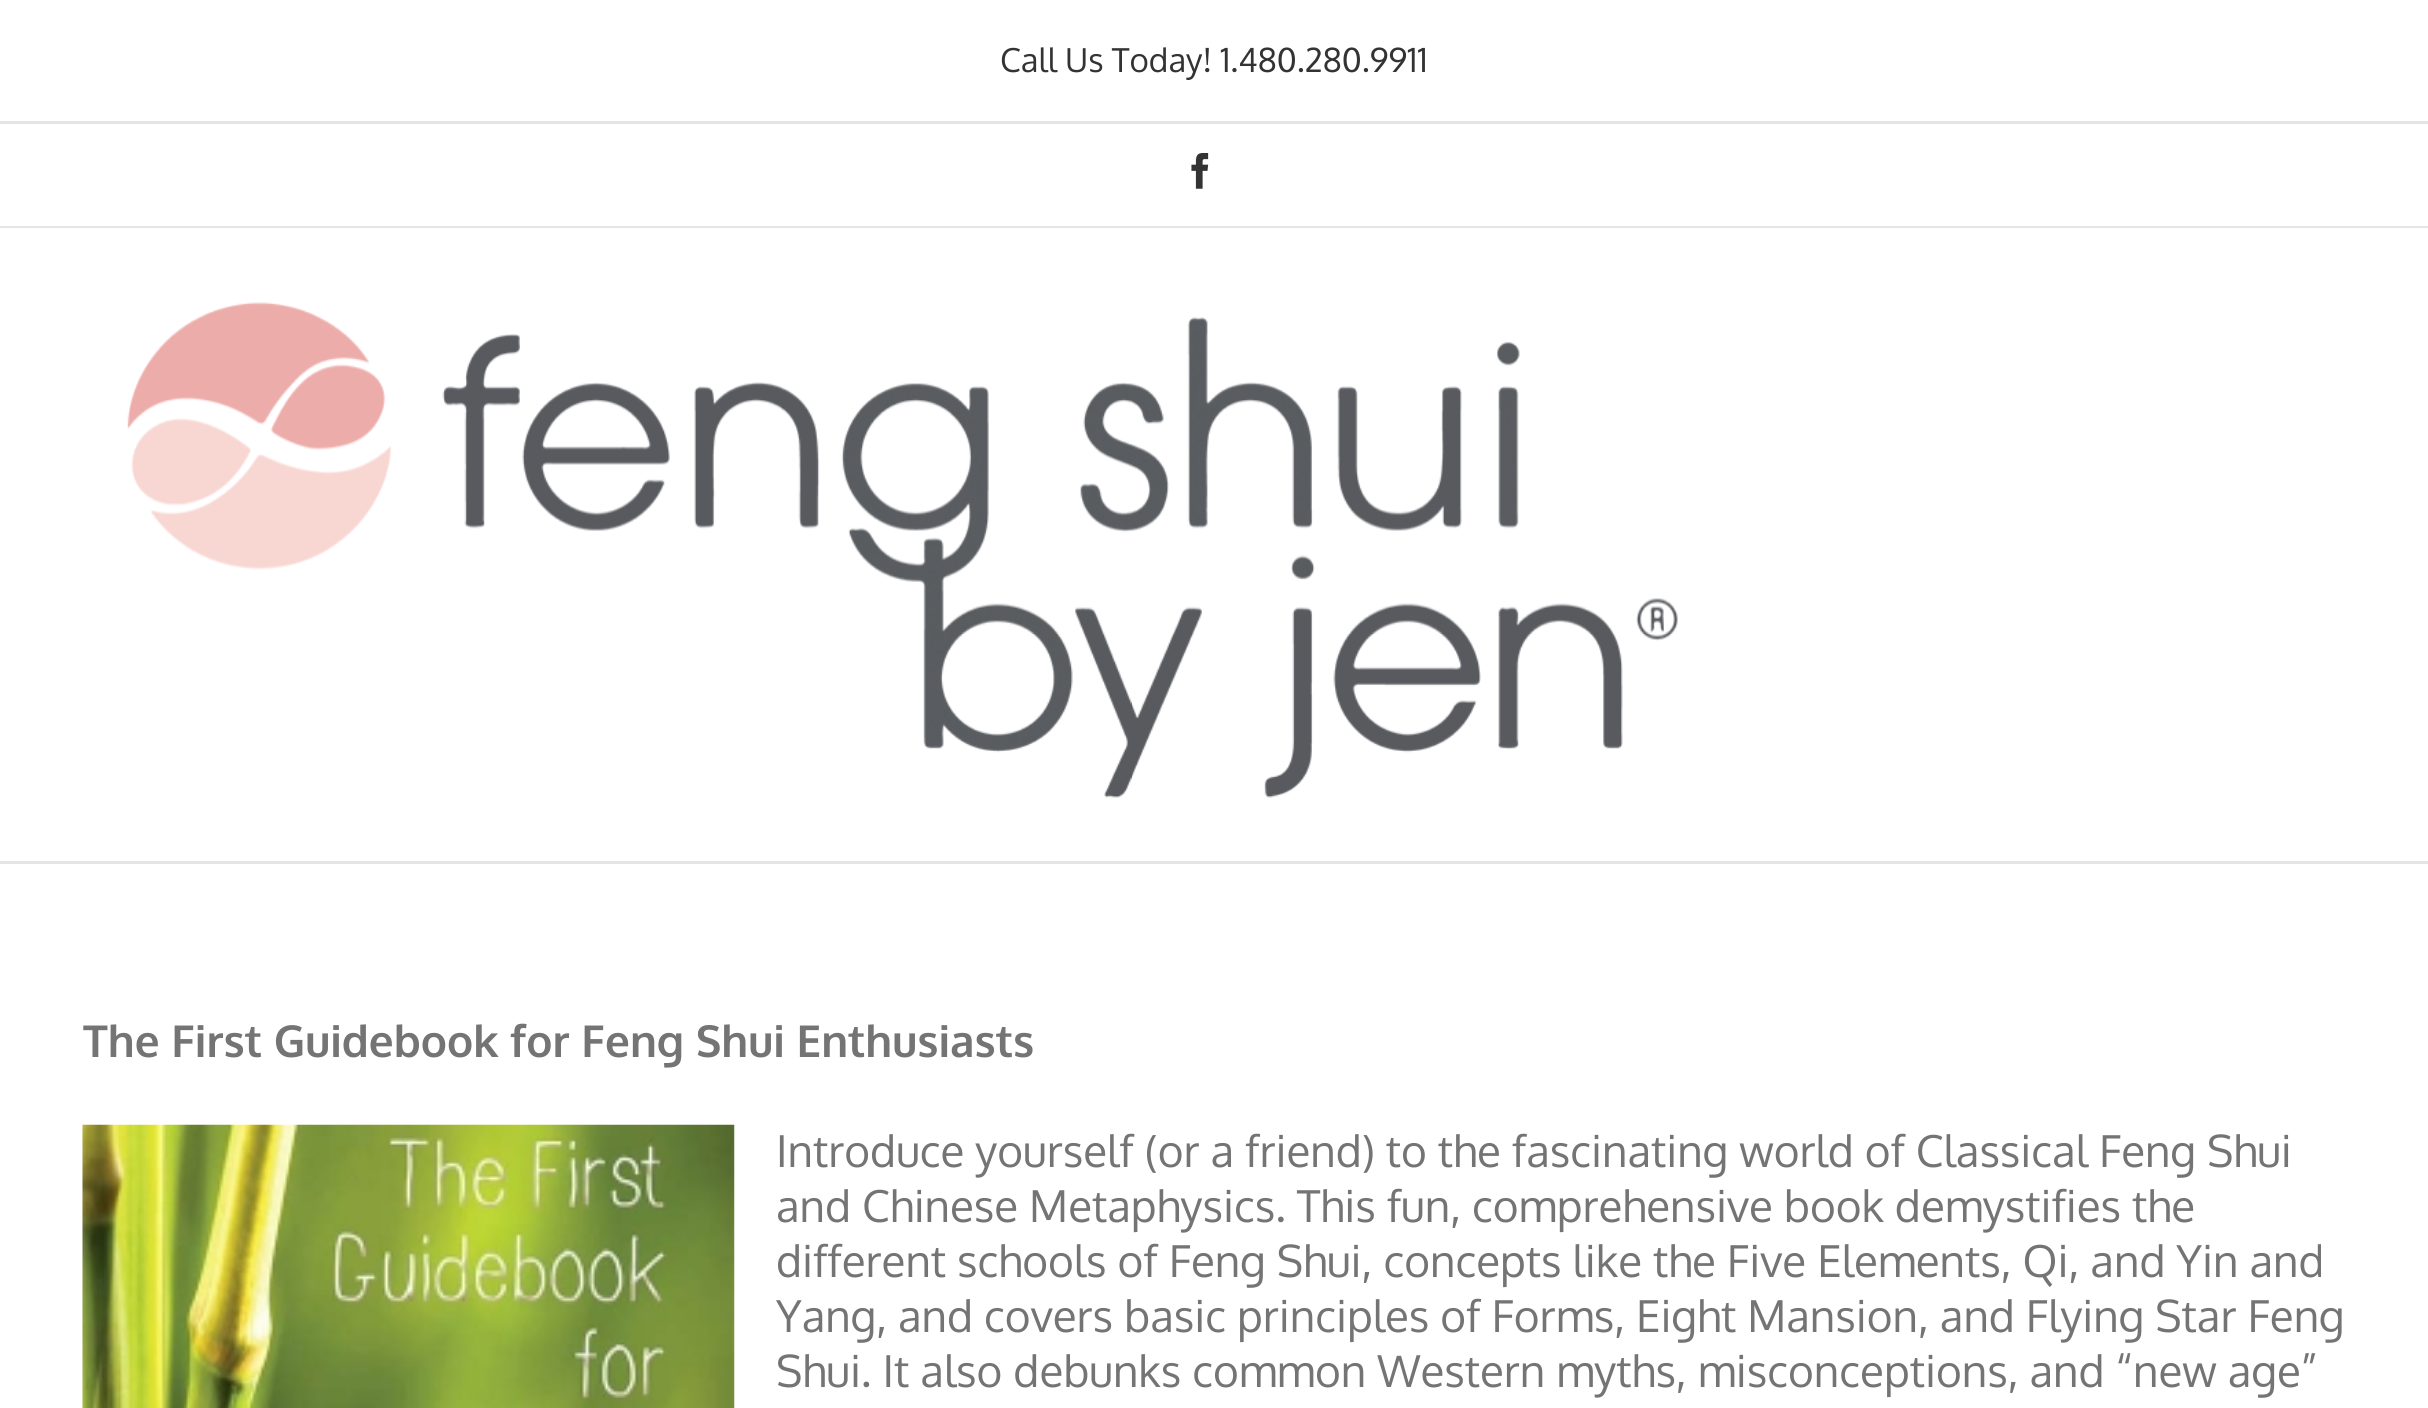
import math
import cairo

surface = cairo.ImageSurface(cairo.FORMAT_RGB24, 2428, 1408)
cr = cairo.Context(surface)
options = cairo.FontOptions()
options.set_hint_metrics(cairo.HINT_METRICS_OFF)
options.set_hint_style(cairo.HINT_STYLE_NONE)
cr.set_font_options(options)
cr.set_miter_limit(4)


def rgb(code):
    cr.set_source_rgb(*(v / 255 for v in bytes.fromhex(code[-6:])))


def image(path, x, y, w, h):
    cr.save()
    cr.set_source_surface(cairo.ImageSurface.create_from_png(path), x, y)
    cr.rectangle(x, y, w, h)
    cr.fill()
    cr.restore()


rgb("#ffffff")
cr.paint()
rgb("#e5e5e5")
cr.rectangle(0, 226, 2428, 2)
cr.fill()
cr.rectangle(0, 121, 2428, 3)
cr.fill()
image("img/1.png", 1191, 153, 18, 36)
cr.rectangle(0, 861, 2428, 3)
cr.fill()
image("img/2.png", 127, 302, 1551, 496)
image("img/3.png", 82, 1124, 653, 284)
cr.select_font_face("Oxygen")
cr.set_font_size(33)
rgb("#333333")
cr.move_to(1000, 72)
cr.show_text("Call Us Today! 1.480.280.9911")
cr.select_font_face("Oxygen", cairo.FONT_SLANT_NORMAL, cairo.FONT_WEIGHT_BOLD)
cr.set_font_size(44)
rgb("#747474")
cr.move_to(83, 1057)
cr.show_text("The First Guidebook for Feng Shui Enthusiasts")
cr.select_font_face("Oxygen")
for x, y, s in [
    (776, 1167, "Introduce yourself (or a friend) to the fascinating world of Classical Feng Shui"),
    (776, 1222, "and Chinese Metaphysics. This fun, comprehensive book demystifies the"),
    (776, 1277, "different schools of Feng Shui, concepts like the Five Elements, Qi, and Yin and"),
    (776, 1332, "Yang, and covers basic principles of Forms, Eight Mansion, and Flying Star Feng"),
    (776, 1387, "Shui. It also debunks common Western myths, misconceptions, and “new age”"),
]:
    cr.move_to(x, y)
    cr.show_text(s)
surface.write_to_png("page.png")
